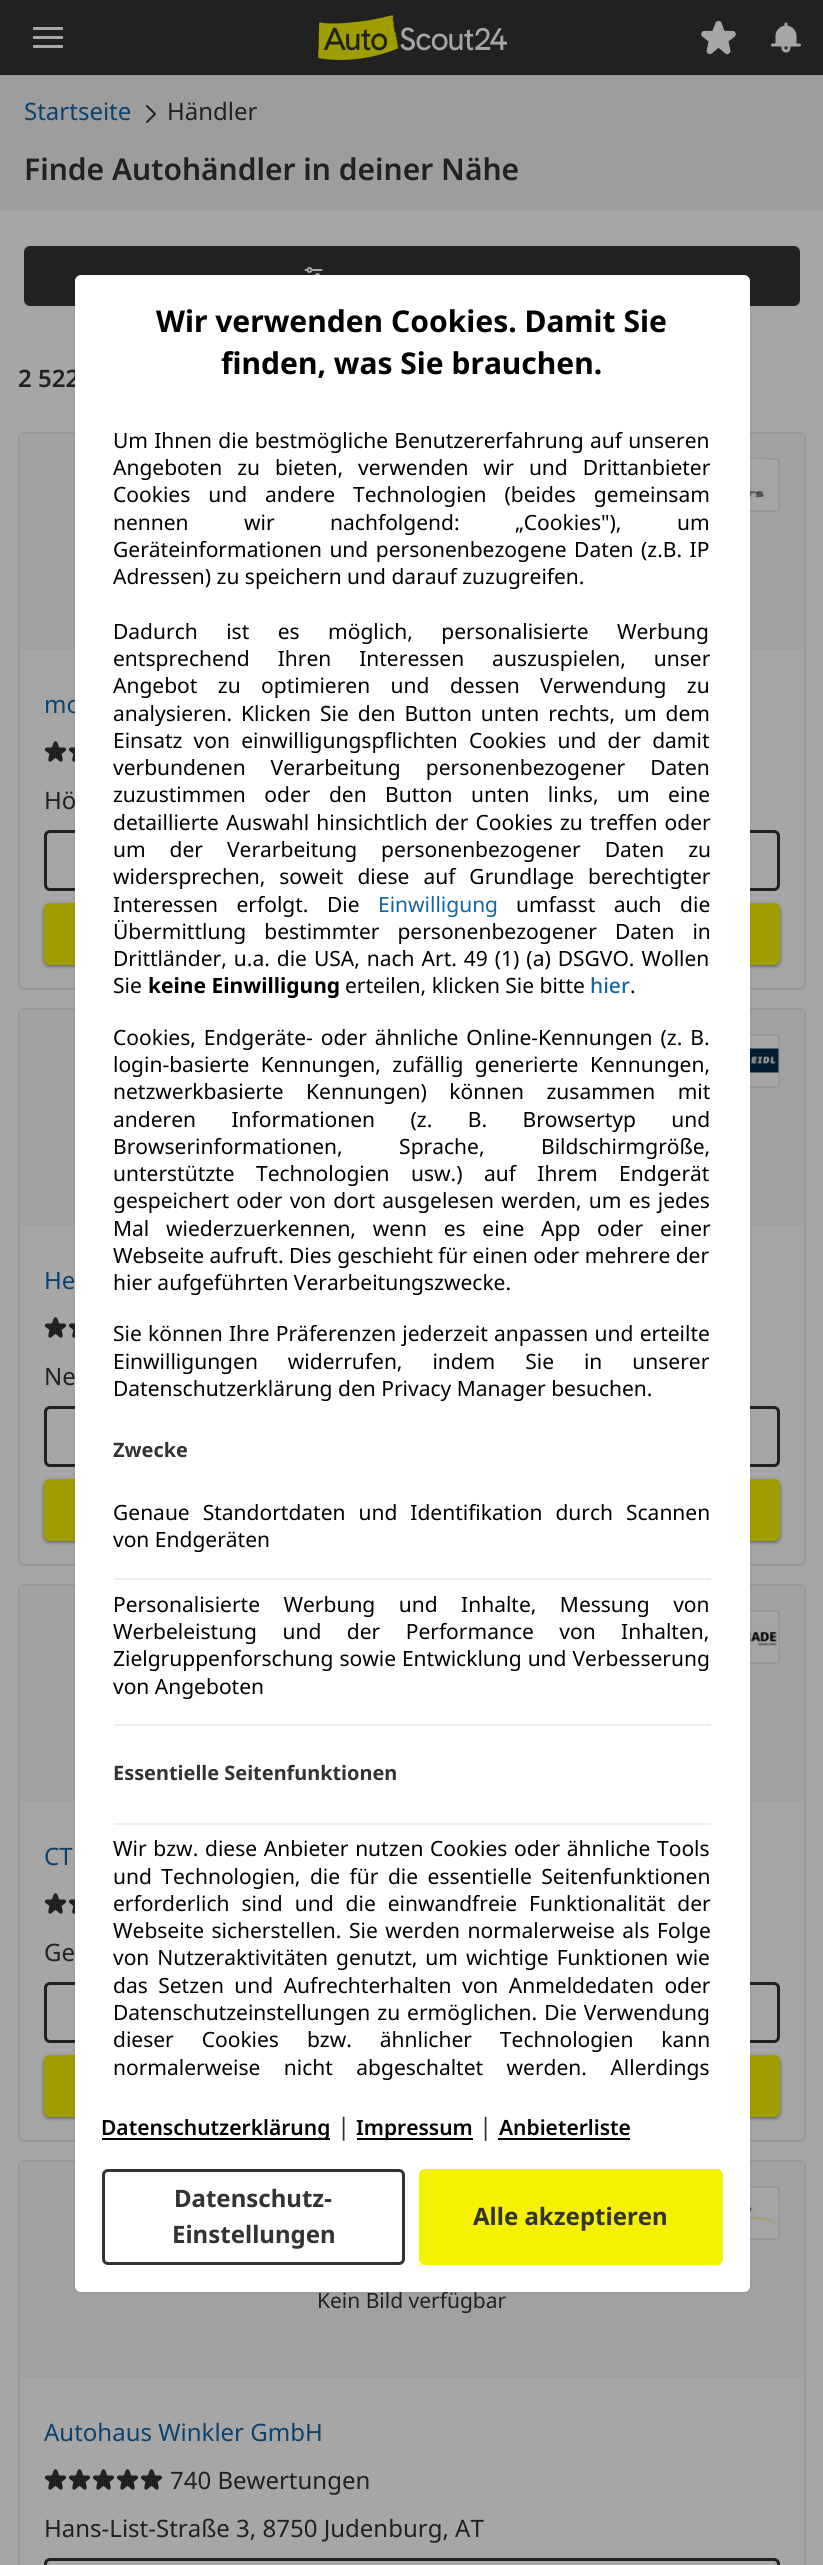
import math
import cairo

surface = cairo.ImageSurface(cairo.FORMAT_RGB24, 823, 2565)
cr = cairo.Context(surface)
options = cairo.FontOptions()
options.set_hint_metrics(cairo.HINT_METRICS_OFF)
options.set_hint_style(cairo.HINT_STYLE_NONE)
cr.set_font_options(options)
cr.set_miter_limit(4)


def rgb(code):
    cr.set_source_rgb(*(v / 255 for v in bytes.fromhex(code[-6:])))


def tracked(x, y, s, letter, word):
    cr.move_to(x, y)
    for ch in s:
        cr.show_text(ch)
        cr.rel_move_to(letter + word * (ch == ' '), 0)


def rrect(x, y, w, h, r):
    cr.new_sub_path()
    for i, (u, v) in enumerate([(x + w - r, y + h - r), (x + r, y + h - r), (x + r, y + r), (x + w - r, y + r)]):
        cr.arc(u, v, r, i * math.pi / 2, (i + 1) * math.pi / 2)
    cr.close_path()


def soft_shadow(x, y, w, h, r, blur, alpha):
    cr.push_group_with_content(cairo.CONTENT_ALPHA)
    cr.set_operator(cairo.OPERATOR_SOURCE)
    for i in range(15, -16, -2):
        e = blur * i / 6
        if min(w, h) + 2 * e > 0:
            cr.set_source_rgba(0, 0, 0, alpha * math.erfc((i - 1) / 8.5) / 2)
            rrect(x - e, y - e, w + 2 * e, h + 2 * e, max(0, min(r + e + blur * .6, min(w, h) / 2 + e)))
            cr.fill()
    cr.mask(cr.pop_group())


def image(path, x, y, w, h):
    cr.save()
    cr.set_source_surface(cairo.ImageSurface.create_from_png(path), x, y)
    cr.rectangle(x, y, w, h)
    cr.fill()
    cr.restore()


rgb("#9d9d9d")
cr.paint()
for x, y, w, h, color in [
    (0, 0, 823, 75, "#212121"),
    (33, 36, 30, 3, "#a6a6a6"),
    (33, 27, 30, 3, "#a6a6a6"),
    (33, 45, 30, 3, "#a6a6a6"),
]:
    rgb(color)
    cr.rectangle(x, y, w, h)
    cr.fill()
image("img/1.png", 318, 15, 189, 45)
image("img/2.png", 701, 20, 35, 35)
image("img/3.png", 771, 22, 30, 31)
image("img/4.png", 146, 105, 10, 18)
rgb("#8f8f8f")
soft_shadow(0, 212, 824, 132, 0, 1.5, 1)
rgb("#a6a6a6")
cr.rectangle(0, 210, 823, 132)
cr.fill()
rgb("#212121")
rrect(24, 246, 776, 60, 6)
cr.fill()
image("img/5.png", 304, 267, 19, 8)
rgb("#8f8f8f")
soft_shadow(0, 344, 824, 72, 0, 1.5, 1)
rgb("#a6a6a6")
cr.rectangle(0, 342, 823, 2223)
cr.fill()
rrect(19, 433, 786, 556, 5)
rgb("#989898")
cr.stroke()
rgb("#a1a1a1")
cr.rectangle(20, 434, 784, 216)
cr.fill()
rgb("#a6a6a6")
rrect(673, 459, 106, 52, 2)
cr.fill_preserve()
rgb("#989898")
cr.stroke()
image("img/6.png", 750, 459, 17, 41)
image("img/7.png", 44, 741, 23, 21)
image("img/8.png", 68, 747, 7, 15)
rrect(45.5, 831.5, 733, 58, 4.5)
rgb("#212121")
cr.set_line_width(3)
cr.stroke()
rgb("#000000")
soft_shadow(44, 905, 736, 61, 6, 2, 0.5)
rgb("#9f9d00")
rrect(44, 903, 736, 62, 6)
cr.fill()
rrect(19, 1009, 786, 556, 5)
rgb("#989898")
cr.set_line_width(2)
cr.stroke()
rgb("#a1a1a1")
cr.rectangle(20, 1010, 784, 216)
cr.fill()
rgb("#a6a6a6")
rrect(673, 1035, 106, 52, 2)
cr.fill_preserve()
rgb("#989898")
cr.stroke()
image("img/9.png", 750, 1048, 29, 25)
image("img/7.png", 44, 1317, 23, 21)
image("img/8.png", 68, 1323, 7, 15)
rrect(45.5, 1407.5, 733, 58, 4.5)
rgb("#212121")
cr.set_line_width(3)
cr.stroke()
rgb("#000000")
soft_shadow(44, 1481, 736, 61, 6, 2, 0.5)
rgb("#9f9d00")
rrect(44, 1479, 736, 62, 6)
cr.fill()
rrect(19, 1585, 786, 556, 5)
rgb("#989898")
cr.set_line_width(2)
cr.stroke()
rgb("#a1a1a1")
cr.rectangle(20, 1586, 784, 216)
cr.fill()
rgb("#a6a6a6")
rrect(673, 1611, 106, 52, 2)
cr.fill_preserve()
rgb("#989898")
cr.stroke()
image("img/10.png", 750, 1624, 29, 25)
image("img/7.png", 44, 1893, 23, 21)
image("img/8.png", 68, 1899, 7, 15)
rrect(45.5, 1983.5, 733, 58, 4.5)
rgb("#212121")
cr.set_line_width(3)
cr.stroke()
rgb("#000000")
soft_shadow(44, 2057, 736, 61, 6, 2, 0.5)
rgb("#9f9d00")
rrect(44, 2055, 736, 62, 6)
cr.fill()
rrect(19, 2161, 786, 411, 5)
rgb("#989898")
cr.set_line_width(2)
cr.stroke()
rgb("#a1a1a1")
cr.rectangle(20, 2162, 784, 216)
cr.fill()
rgb("#a6a6a6")
rrect(673, 2187, 106, 52, 2)
cr.fill_preserve()
rgb("#989898")
cr.stroke()
image("img/11.png", 750, 2199, 29, 27)
image("img/7.png", 44, 2469, 23, 21)
image("img/7.png", 68, 2469, 23, 21)
image("img/7.png", 92, 2469, 23, 21)
image("img/7.png", 116, 2469, 23, 21)
image("img/7.png", 140, 2469, 23, 21)
rrect(45.5, 2559.5, 733, 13, 4.5)
rgb("#212121")
cr.set_line_width(3)
cr.stroke()
rgb("#000000")
soft_shadow(75, 275, 675, 2017, 6, 1.5, 0.12)
cr.select_font_face("Noto Sans")
cr.set_font_size(24)
rgb("#0b426d")
cr.move_to(24, 120)
cr.show_text("Startseite")
rgb("#212121")
cr.move_to(167, 120)
cr.show_text("Händler")
cr.select_font_face("Noto Sans SemiBold")
cr.set_font_size(30)
cr.move_to(24, 180)
cr.show_text("Finde Autohändler in deiner Nähe")
cr.set_font_size(24)
cr.move_to(18, 387)
cr.show_text("2 522")
cr.select_font_face("Noto Sans")
rgb("#0b426d")
cr.move_to(44, 713)
cr.show_text("mo")
rgb("#212121")
cr.move_to(44, 809)
cr.show_text("Hö")
rgb("#0b426d")
cr.move_to(44, 1289)
cr.show_text("He")
rgb("#212121")
cr.move_to(44, 1385)
cr.show_text("Ne")
rgb("#0b426d")
cr.move_to(44, 1865)
cr.show_text("CT")
rgb("#212121")
cr.move_to(44, 1961)
cr.show_text("Ge")
cr.set_font_size(21)
cr.move_to(317, 2308)
cr.show_text("Kein Bild verfügbar")
cr.set_font_size(24)
rgb("#0b426d")
cr.move_to(44, 2441)
cr.show_text("Autohaus Winkler GmbH")
rgb("#212121")
cr.move_to(170, 2489)
cr.show_text("740 Bewertungen")
cr.move_to(44, 2537)
cr.show_text("Hans-List-Straße 3, 8750 Judenburg, AT")
rgb("#ffffff")
rrect(75, 275, 675, 2017, 6)
cr.fill()
cr.select_font_face("Noto Sans", cairo.FONT_SLANT_NORMAL, cairo.FONT_WEIGHT_BOLD)
cr.set_font_size(30)
rgb("#000000")
cr.move_to(156, 332)
cr.show_text("Wir verwenden Cookies. Damit Sie")
cr.move_to(221, 374)
cr.show_text("finden, was Sie brauchen.")
cr.select_font_face("Noto Sans")
cr.set_font_size(21)
tracked(113, 448, "Um Ihnen die bestmögliche Benutzererfahrung auf unseren", 0, 0.75)
tracked(113, 475, "Angeboten zu bieten, verwenden wir und Drittanbieter", 0, 9.5)
tracked(113, 502, "Cookies und andere Technologien (beides gemeinsam", 0, 12.5)
tracked(113, 530, "nennen wir nachfolgend: „Cookies\"), um", 0, 50)
tracked(113, 557, "Geräteinformationen und personenbezogene Daten (z.B. IP", 0, 2)
cr.move_to(113, 584)
cr.show_text("Adressen) zu speichern und darauf zuzugreifen.")
tracked(113, 639, "Dadurch ist es möglich, personalisierte Werbung", 0, 23)
tracked(113, 666, "entsprechend Ihren Interessen auszuspielen, unser", 0, 22.5)
tracked(113, 693, "Angebot zu optimieren und dessen Verwendung zu", 0, 15)
tracked(113, 721, "analysieren. Klicken Sie den Button unten rechts, um dem", 0, 3.5)
tracked(113, 748, "Einsatz von einwilligungspflichten Cookies und der damit", 0, 5.75)
tracked(113, 775, "verbundenen Verarbeitung personenbezogener Daten", 0, 19.5)
tracked(113, 802, "zuzustimmen oder den Button unten links, um eine", 0, 13)
tracked(113, 830, "detaillierte Auswahl hinsichtlich der Cookies zu treffen oder", 0, 1.75)
tracked(113, 857, "um der Verarbeitung personenbezogener Daten zu", 0, 18.5)
tracked(113, 884, "widersprechen, soweit diese auf Grundlage berechtigter", 0, 8.5)
tracked(113, 912, "Interessen erfolgt. Die", 0, 13)
rgb("#1166a8")
cr.move_to(378, 912)
cr.show_text("Einwilligung")
rgb("#000000")
tracked(516, 912, "umfasst auch die", 0, 13)
tracked(113, 939, "Übermittlung bestimmter personenbezogener Daten in", 0, 12.5)
tracked(113, 966, "Drittländer, u.a. die USA, nach Art. 49 (1) (a) DSGVO. Wollen", 0, 1.5)
cr.move_to(113, 993)
cr.show_text("Sie")
cr.select_font_face("Noto Sans", cairo.FONT_SLANT_NORMAL, cairo.FONT_WEIGHT_BOLD)
cr.move_to(148, 993)
cr.show_text("keine Einwilligung")
cr.select_font_face("Noto Sans")
cr.move_to(345, 993)
cr.show_text("erteilen, klicken Sie bitte")
cr.select_font_face("Noto Sans Medium")
rgb("#1166a8")
cr.move_to(590, 993)
cr.show_text("hier")
cr.select_font_face("Noto Sans")
rgb("#000000")
cr.move_to(630, 993)
cr.show_text(".")
tracked(113, 1045, "Cookies, Endgeräte- oder ähnliche Online-Kennungen (z. B.", 0, 2.5)
tracked(113, 1072, "login-basierte Kennungen, zufällig generierte Kennungen,", 0, 6)
tracked(113, 1099, "netzwerkbasierte Kennungen) können zusammen mit", 0, 17)
tracked(113, 1127, "anderen Informationen (z. B. Browsertyp und", 0, 30)
tracked(113, 1154, "Browserinformationen, Sprache, Bildschirmgröße,", 0, 51)
tracked(113, 1181, "unterstützte Technologien usw.) auf Ihrem Endgerät", 0, 16)
tracked(113, 1208, "gespeichert oder von dort ausgelesen werden, um es jedes", 0, 1.75)
tracked(113, 1236, "Mal wiederzuerkennen, wenn es eine App oder einer", 0, 11.25)
cr.move_to(113, 1263)
cr.show_text("Webseite aufruft. Dies geschieht für einen oder mehrere der")
cr.move_to(113, 1290)
cr.show_text("hier aufgeführten Verarbeitungszwecke.")
tracked(113, 1341, "Sie können Ihre Präferenzen jederzeit anpassen und erteilte", 0, 0.75)
tracked(113, 1369, "Einwilligungen widerrufen, indem Sie in unserer", 0, 24.5)
cr.move_to(113, 1396)
cr.show_text("Datenschutzerklärung den Privacy Manager besuchen.")
cr.select_font_face("Noto Sans", cairo.FONT_SLANT_NORMAL, cairo.FONT_WEIGHT_BOLD)
cr.set_font_size(19.9)
rgb("#333333")
cr.move_to(113, 1457)
cr.show_text("Zwecke")
cr.select_font_face("Noto Sans")
cr.set_font_size(21)
rgb("#000000")
tracked(113, 1520, "Genaue Standortdaten und Identifikation durch Scannen", 0, 7.5)
cr.move_to(113, 1547)
cr.show_text("von Endgeräten")
rgb("#eeeeee")
cr.rectangle(114, 1578, 597, 2)
cr.fill()
rgb("#000000")
tracked(113, 1612, "Personalisierte Werbung und Inhalte, Messung von", 0, 18)
tracked(113, 1639, "Werbeleistung und der Performance von Inhalten,", 0, 20)
tracked(113, 1666, "Zielgruppenforschung sowie Entwicklung und Verbesserung", 0, 0.5)
cr.move_to(113, 1694)
cr.show_text("von Angeboten")
rgb("#eeeeee")
cr.rectangle(114, 1724, 597, 2)
cr.fill()
cr.select_font_face("Noto Sans", cairo.FONT_SLANT_NORMAL, cairo.FONT_WEIGHT_BOLD)
cr.set_font_size(19.9)
rgb("#333333")
cr.move_to(113, 1780)
cr.show_text("Essentielle Seitenfunktionen")
rgb("#eeeeee")
cr.rectangle(114, 1823, 597, 2)
cr.fill()
cr.select_font_face("Noto Sans")
cr.set_font_size(21)
rgb("#000000")
tracked(113, 1856, "Wir bzw. diese Anbieter nutzen Cookies oder ähnliche Tools", 0, 1.25)
tracked(113, 1884, "und Technologien, die für die essentielle Seitenfunktionen", 0, 4)
tracked(113, 1911, "erforderlich sind und die einwandfreie Funktionalität der", 0, 6.5)
tracked(113, 1938, "Webseite sicherstellen.", 0, 2)
tracked(349, 1938, "Sie werden normalerweise als Folge", 0, 2)
tracked(113, 1965, "von Nutzeraktivitäten genutzt, um wichtige Funktionen wie", 0, 2.5)
tracked(113, 1993, "das Setzen und Aufrechterhalten von Anmeldedaten oder", 0, 5)
tracked(113, 2020, "Datenschutzeinstellungen zu ermöglichen. Die Verwendung", 0, 1.5)
tracked(113, 2047, "dieser Cookies bzw. ähnlicher Technologien kann", 0, 22.5)
tracked(113, 2075, "normalerweise nicht abgeschaltet werden. Allerdings", 0, 18)
cr.rectangle(102, 2138, 228, 2)
cr.fill()
cr.select_font_face("Noto Sans SemiBold")
cr.move_to(101, 2135)
cr.show_text("Datenschutzerklärung")
cr.select_font_face("Noto Sans")
cr.set_font_size(24)
rgb("#333333")
cr.move_to(337, 2135)
cr.show_text("|")
rgb("#000000")
cr.rectangle(357, 2138, 116, 2)
cr.fill()
cr.select_font_face("Noto Sans SemiBold")
cr.set_font_size(21)
cr.move_to(356, 2135)
cr.show_text("Impressum")
cr.select_font_face("Noto Sans")
cr.set_font_size(24)
rgb("#333333")
cr.move_to(479, 2135)
cr.show_text("|")
cr.select_font_face("Noto Sans SemiBold")
cr.set_font_size(21)
rgb("#000000")
cr.move_to(499, 2135)
cr.show_text("Anbieterliste")
cr.rectangle(498, 2138, 132, 2)
cr.fill()
rrect(103.5, 2170.5, 300, 93, 4.5)
rgb("#333333")
cr.stroke()
cr.select_font_face("Noto Sans", cairo.FONT_SLANT_NORMAL, cairo.FONT_WEIGHT_BOLD)
cr.set_font_size(24)
cr.move_to(174, 2207)
cr.show_text("Datenschutz-")
cr.move_to(172, 2243)
cr.show_text("Einstellungen")
rgb("#f5f200")
rrect(419, 2169, 304, 96, 6)
cr.fill()
rgb("#333333")
cr.move_to(473, 2225)
cr.show_text("Alle akzeptieren")
surface.write_to_png("page.png")
